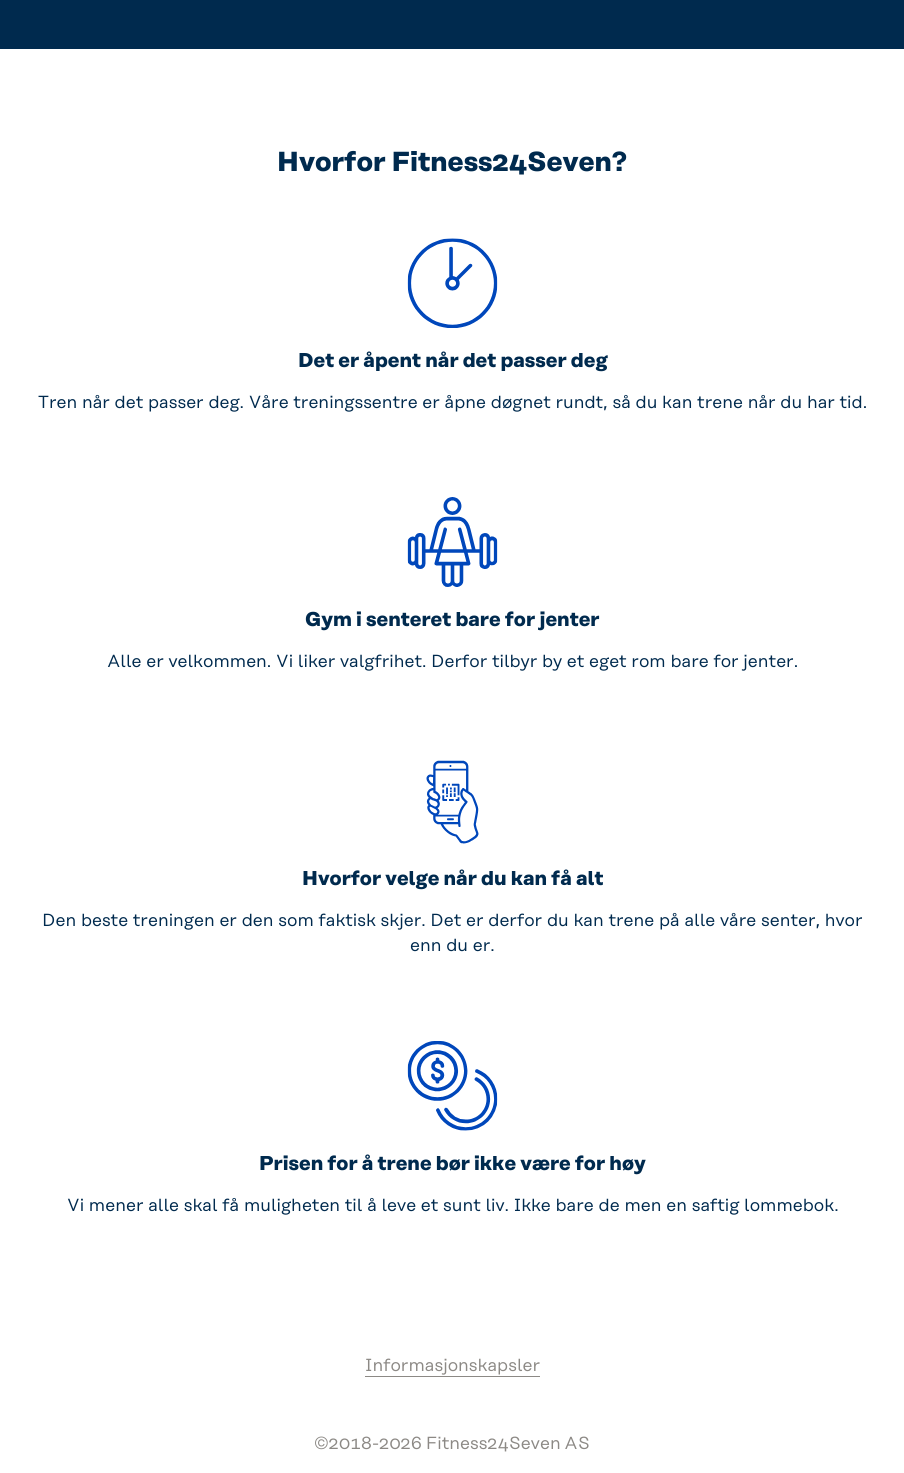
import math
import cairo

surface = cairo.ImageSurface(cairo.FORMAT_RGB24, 904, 1473)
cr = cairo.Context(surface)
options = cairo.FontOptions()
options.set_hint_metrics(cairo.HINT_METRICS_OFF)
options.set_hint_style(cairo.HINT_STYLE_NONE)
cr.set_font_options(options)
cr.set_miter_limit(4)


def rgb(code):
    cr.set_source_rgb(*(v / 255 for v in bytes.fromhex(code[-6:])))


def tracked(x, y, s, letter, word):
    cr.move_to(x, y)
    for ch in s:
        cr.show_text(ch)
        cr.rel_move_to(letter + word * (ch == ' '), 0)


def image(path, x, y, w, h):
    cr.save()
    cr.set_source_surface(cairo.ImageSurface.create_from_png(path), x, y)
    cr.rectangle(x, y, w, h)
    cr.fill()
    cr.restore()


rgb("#002a4e")
cr.paint()
rgb("#ffffff")
cr.rectangle(0, 49, 904, 1424)
cr.fill()
image("img/1.png", 407, 238, 91, 90)
image("img/2.png", 407, 497, 91, 90)
image("img/3.png", 426, 760, 53, 84)
image("img/4.png", 407, 1041, 91, 90)
rgb("#8c8985")
cr.rectangle(365, 1376, 175, 1)
cr.fill()
cr.select_font_face("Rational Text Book", cairo.FONT_SLANT_NORMAL, cairo.FONT_WEIGHT_BOLD)
cr.set_font_size(27.5)
rgb("#002a4e")
cr.move_to(277, 171)
cr.show_text("Hvorfor Fitness24Seven?")
cr.set_font_size(20)
cr.move_to(298, 367)
cr.show_text("Det er åpent når det passer deg")
cr.select_font_face("Rational Text Book")
cr.set_font_size(17.5)
cr.move_to(38, 408)
cr.show_text("Tren når det passer deg. Våre treningssentre er åpne døgnet rundt, så du kan trene når du har tid.")
cr.select_font_face("Rational Text Book", cairo.FONT_SLANT_NORMAL, cairo.FONT_WEIGHT_BOLD)
cr.set_font_size(20)
cr.move_to(305, 626)
cr.show_text("Gym i senteret bare for jenter")
cr.select_font_face("Rational Text Book")
cr.set_font_size(17.5)
cr.move_to(107, 667)
cr.show_text("Alle er velkommen. Vi liker valgfrihet. Derfor tilbyr by et eget rom bare for jenter.")
cr.select_font_face("Rational Text Book", cairo.FONT_SLANT_NORMAL, cairo.FONT_WEIGHT_BOLD)
cr.set_font_size(20)
cr.move_to(302, 885)
cr.show_text("Hvorfor velge når du kan få alt")
cr.select_font_face("Rational Text Book")
cr.set_font_size(17.5)
cr.move_to(42, 926)
cr.show_text("Den beste treningen er den som faktisk skjer. Det er derfor du kan trene på alle våre senter, hvor")
cr.move_to(410, 951)
cr.show_text("enn du er.")
cr.select_font_face("Rational Text Book", cairo.FONT_SLANT_NORMAL, cairo.FONT_WEIGHT_BOLD)
cr.set_font_size(20)
cr.move_to(259, 1170)
cr.show_text("Prisen for å trene bør ikke være for høy")
cr.select_font_face("Rational Text Book")
cr.set_font_size(17.5)
cr.move_to(67, 1211)
cr.show_text("Vi mener alle skal få muligheten til å leve et sunt liv. Ikke bare de men en saftig lommebok.")
rgb("#8c8985")
cr.move_to(365, 1371)
cr.show_text("Informasjonskapsler")
tracked(314, 1449, "©2018-2026 Fitness24Seven AS", 0, -1)
surface.write_to_png("page.png")
